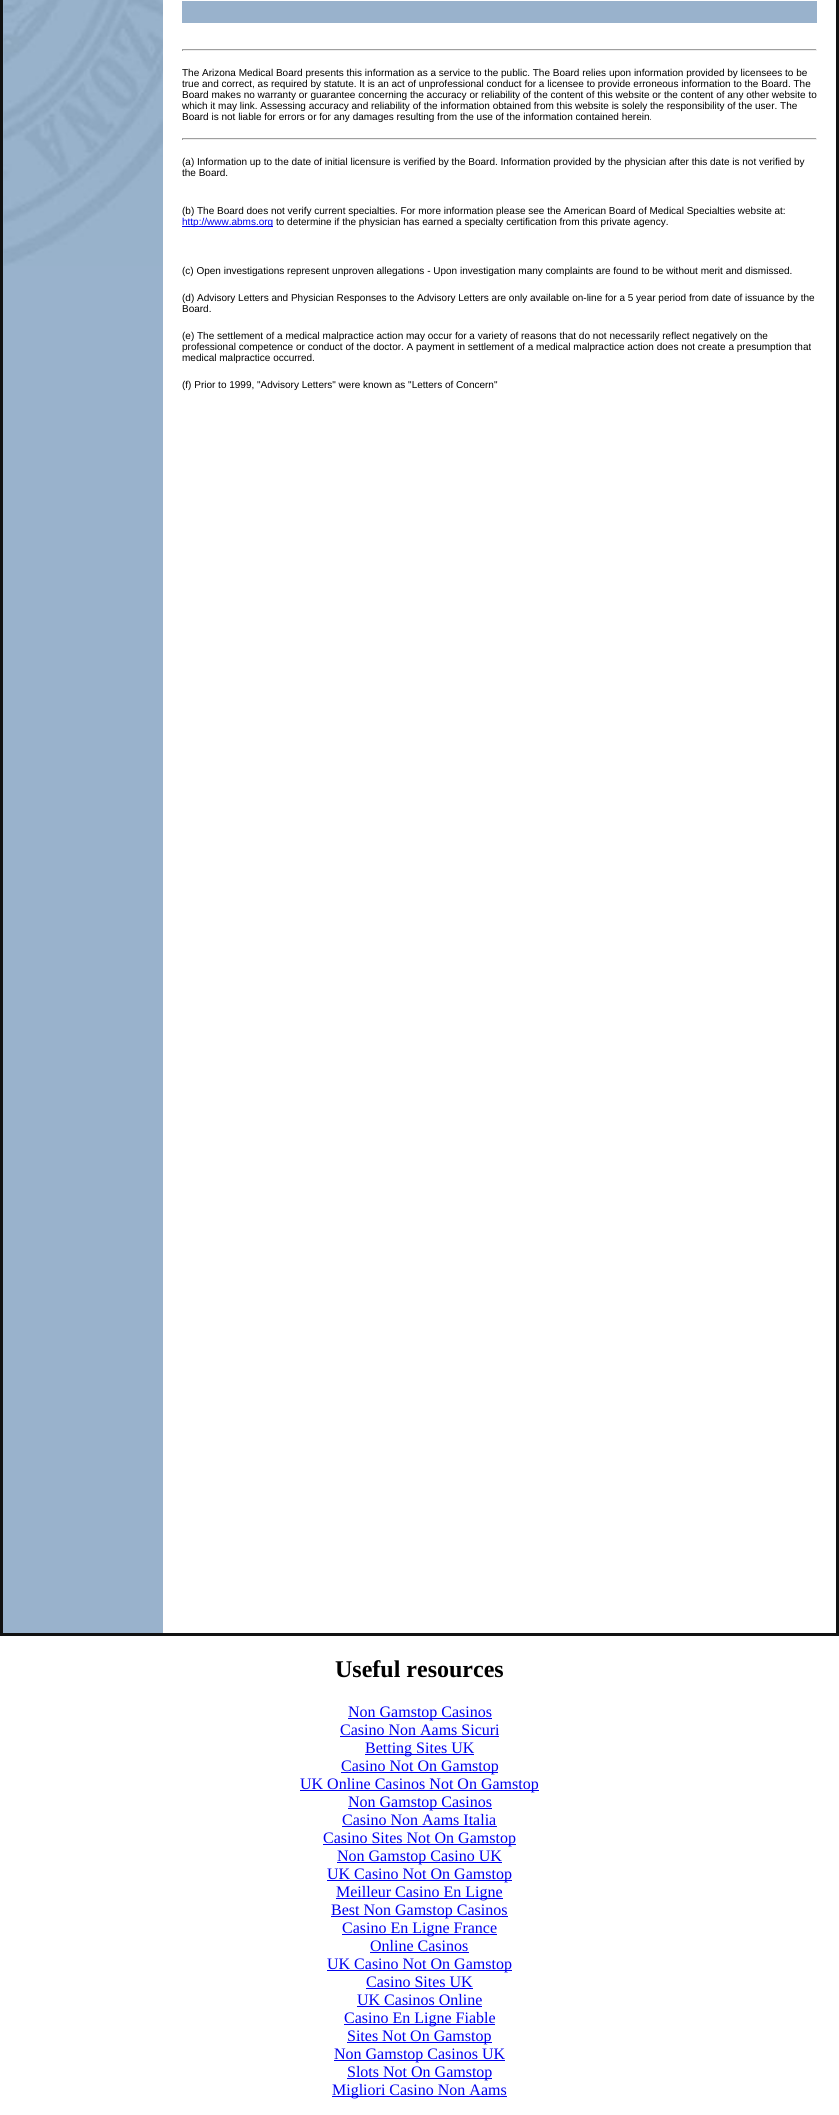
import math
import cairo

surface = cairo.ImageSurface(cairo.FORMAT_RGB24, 839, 2115)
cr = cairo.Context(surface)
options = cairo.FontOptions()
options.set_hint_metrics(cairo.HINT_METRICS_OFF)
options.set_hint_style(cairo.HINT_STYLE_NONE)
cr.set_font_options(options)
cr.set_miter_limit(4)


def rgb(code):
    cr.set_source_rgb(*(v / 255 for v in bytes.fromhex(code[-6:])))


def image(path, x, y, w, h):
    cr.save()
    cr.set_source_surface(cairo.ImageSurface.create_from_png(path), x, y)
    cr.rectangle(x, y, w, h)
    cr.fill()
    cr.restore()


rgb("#ffffff")
cr.paint()
for x, y, w, h, color in [
    (836, 0, 3, 1636, "#111111"),
    (0, 1633, 839, 3, "#111111"),
    (0, 0, 3, 1636, "#111111"),
    (3, 266, 160, 1367, "#99b2cc"),
]:
    rgb(color)
    cr.rectangle(x, y, w, h)
    cr.fill()
image("img/1.png", 3, 0, 160, 266)
for x, y, w, h, color in [
    (182, 1, 635, 22, "#99b2cc"),
    (182, 49, 635, 1, "#9f9f9f"),
    (816, 49, 1, 2, "#eeeeee"),
    (182, 50, 635, 1, "#eeeeee"),
    (182, 49, 1, 2, "#9f9f9f"),
    (182, 138, 635, 1, "#9f9f9f"),
    (816, 138, 1, 2, "#eeeeee"),
    (182, 139, 635, 1, "#eeeeee"),
    (182, 138, 1, 2, "#9f9f9f"),
    (182, 226, 91, 1, "#0000ee"),
    (348, 1718, 144, 1, "#0000ee"),
    (340, 1736, 159, 1, "#0000ee"),
    (365, 1754, 109, 1, "#0000ee"),
    (341, 1772, 157, 1, "#0000ee"),
    (300, 1790, 239, 1, "#0000ee"),
    (348, 1808, 144, 1, "#0000ee"),
    (342, 1826, 155, 1, "#0000ee"),
    (323, 1844, 193, 1, "#0000ee"),
    (337, 1862, 165, 1, "#0000ee"),
    (327, 1880, 185, 1, "#0000ee"),
    (336, 1898, 167, 1, "#0000ee"),
    (331, 1916, 177, 1, "#0000ee"),
    (342, 1934, 155, 1, "#0000ee"),
    (370, 1952, 99, 1, "#0000ee"),
    (327, 1970, 185, 1, "#0000ee"),
    (366, 1988, 107, 1, "#0000ee"),
    (357, 2006, 125, 1, "#0000ee"),
    (344, 2024, 151, 1, "#0000ee"),
    (347, 2042, 145, 1, "#0000ee"),
    (334, 2060, 171, 1, "#0000ee"),
    (347, 2078, 145, 1, "#0000ee"),
    (332, 2096, 175, 1, "#0000ee"),
]:
    rgb(color)
    cr.rectangle(x, y, w, h)
    cr.fill()
cr.select_font_face("Liberation Sans")
cr.set_font_size(10)
rgb("#000000")
for x, y, s in [
    (182, 76, "The Arizona Medical Board presents this information as a service to the public. The Board relies upon information provided by licensees to be"),
    (182, 87, "true and correct, as required by statute. It is an act of unprofessional conduct for a licensee to provide erroneous information to the Board. The"),
    (182, 98, "Board makes no warranty or guarantee concerning the accuracy or reliability of the content of this website or the content of any other website to"),
    (182, 109, "which it may link. Assessing accuracy and reliability of the information obtained from this website is solely the responsibility of the user. The"),
    (182, 120, "Board is not liable for errors or for any damages resulting from the use of the information contained herein."),
    (182, 165, "(a) Information up to the date of initial licensure is verified by the Board. Information provided by the physician after this date is not verified by"),
    (182, 176, "the Board."),
    (182, 214, "(b) The Board does not verify current specialties. For more information please see the American Board of Medical Specialties website at:"),
]:
    cr.move_to(x, y)
    cr.show_text(s)
rgb("#0000ee")
cr.move_to(182, 225)
cr.show_text("http://www.abms.org")
rgb("#000000")
for x, y, s in [
    (276, 225, "to determine if the physician has earned a specialty certification from this private agency."),
    (182, 274, "(c) Open investigations represent unproven allegations - Upon investigation many complaints are found to be without merit and dismissed."),
    (182, 301, "(d) Advisory Letters and Physician Responses to the Advisory Letters are only available on-line for a 5 year period from date of issuance by the"),
    (182, 312, "Board."),
    (182, 339, "(e) The settlement of a medical malpractice action may occur for a variety of reasons that do not necessarily reflect negatively on the"),
    (182, 350, "professional competence or conduct of the doctor. A payment in settlement of a medical malpractice action does not create a presumption that"),
    (182, 361, "medical malpractice occurred."),
    (182, 388, "(f) Prior to 1999, \"Advisory Letters\" were known as \"Letters of Concern\""),
]:
    cr.move_to(x, y)
    cr.show_text(s)
cr.select_font_face("Liberation Serif", cairo.FONT_SLANT_NORMAL, cairo.FONT_WEIGHT_BOLD)
cr.set_font_size(24)
cr.move_to(335, 1677)
cr.show_text("Useful resources")
cr.select_font_face("Liberation Serif")
cr.set_font_size(16)
rgb("#0000ee")
for x, y, s in [
    (348, 1717, "Non Gamstop Casinos"),
    (340, 1735, "Casino Non Aams Sicuri"),
    (365, 1753, "Betting Sites UK"),
    (341, 1771, "Casino Not On Gamstop"),
    (300, 1789, "UK Online Casinos Not On Gamstop"),
    (348, 1807, "Non Gamstop Casinos"),
    (342, 1825, "Casino Non Aams Italia"),
    (323, 1843, "Casino Sites Not On Gamstop"),
    (337, 1861, "Non Gamstop Casino UK"),
    (327, 1879, "UK Casino Not On Gamstop"),
    (336, 1897, "Meilleur Casino En Ligne"),
    (331, 1915, "Best Non Gamstop Casinos"),
    (342, 1933, "Casino En Ligne France"),
    (370, 1951, "Online Casinos"),
    (327, 1969, "UK Casino Not On Gamstop"),
    (366, 1987, "Casino Sites UK"),
    (357, 2005, "UK Casinos Online"),
    (344, 2023, "Casino En Ligne Fiable"),
    (347, 2041, "Sites Not On Gamstop"),
    (334, 2059, "Non Gamstop Casinos UK"),
    (347, 2077, "Slots Not On Gamstop"),
    (332, 2095, "Migliori Casino Non Aams"),
]:
    cr.move_to(x, y)
    cr.show_text(s)
surface.write_to_png("page.png")
